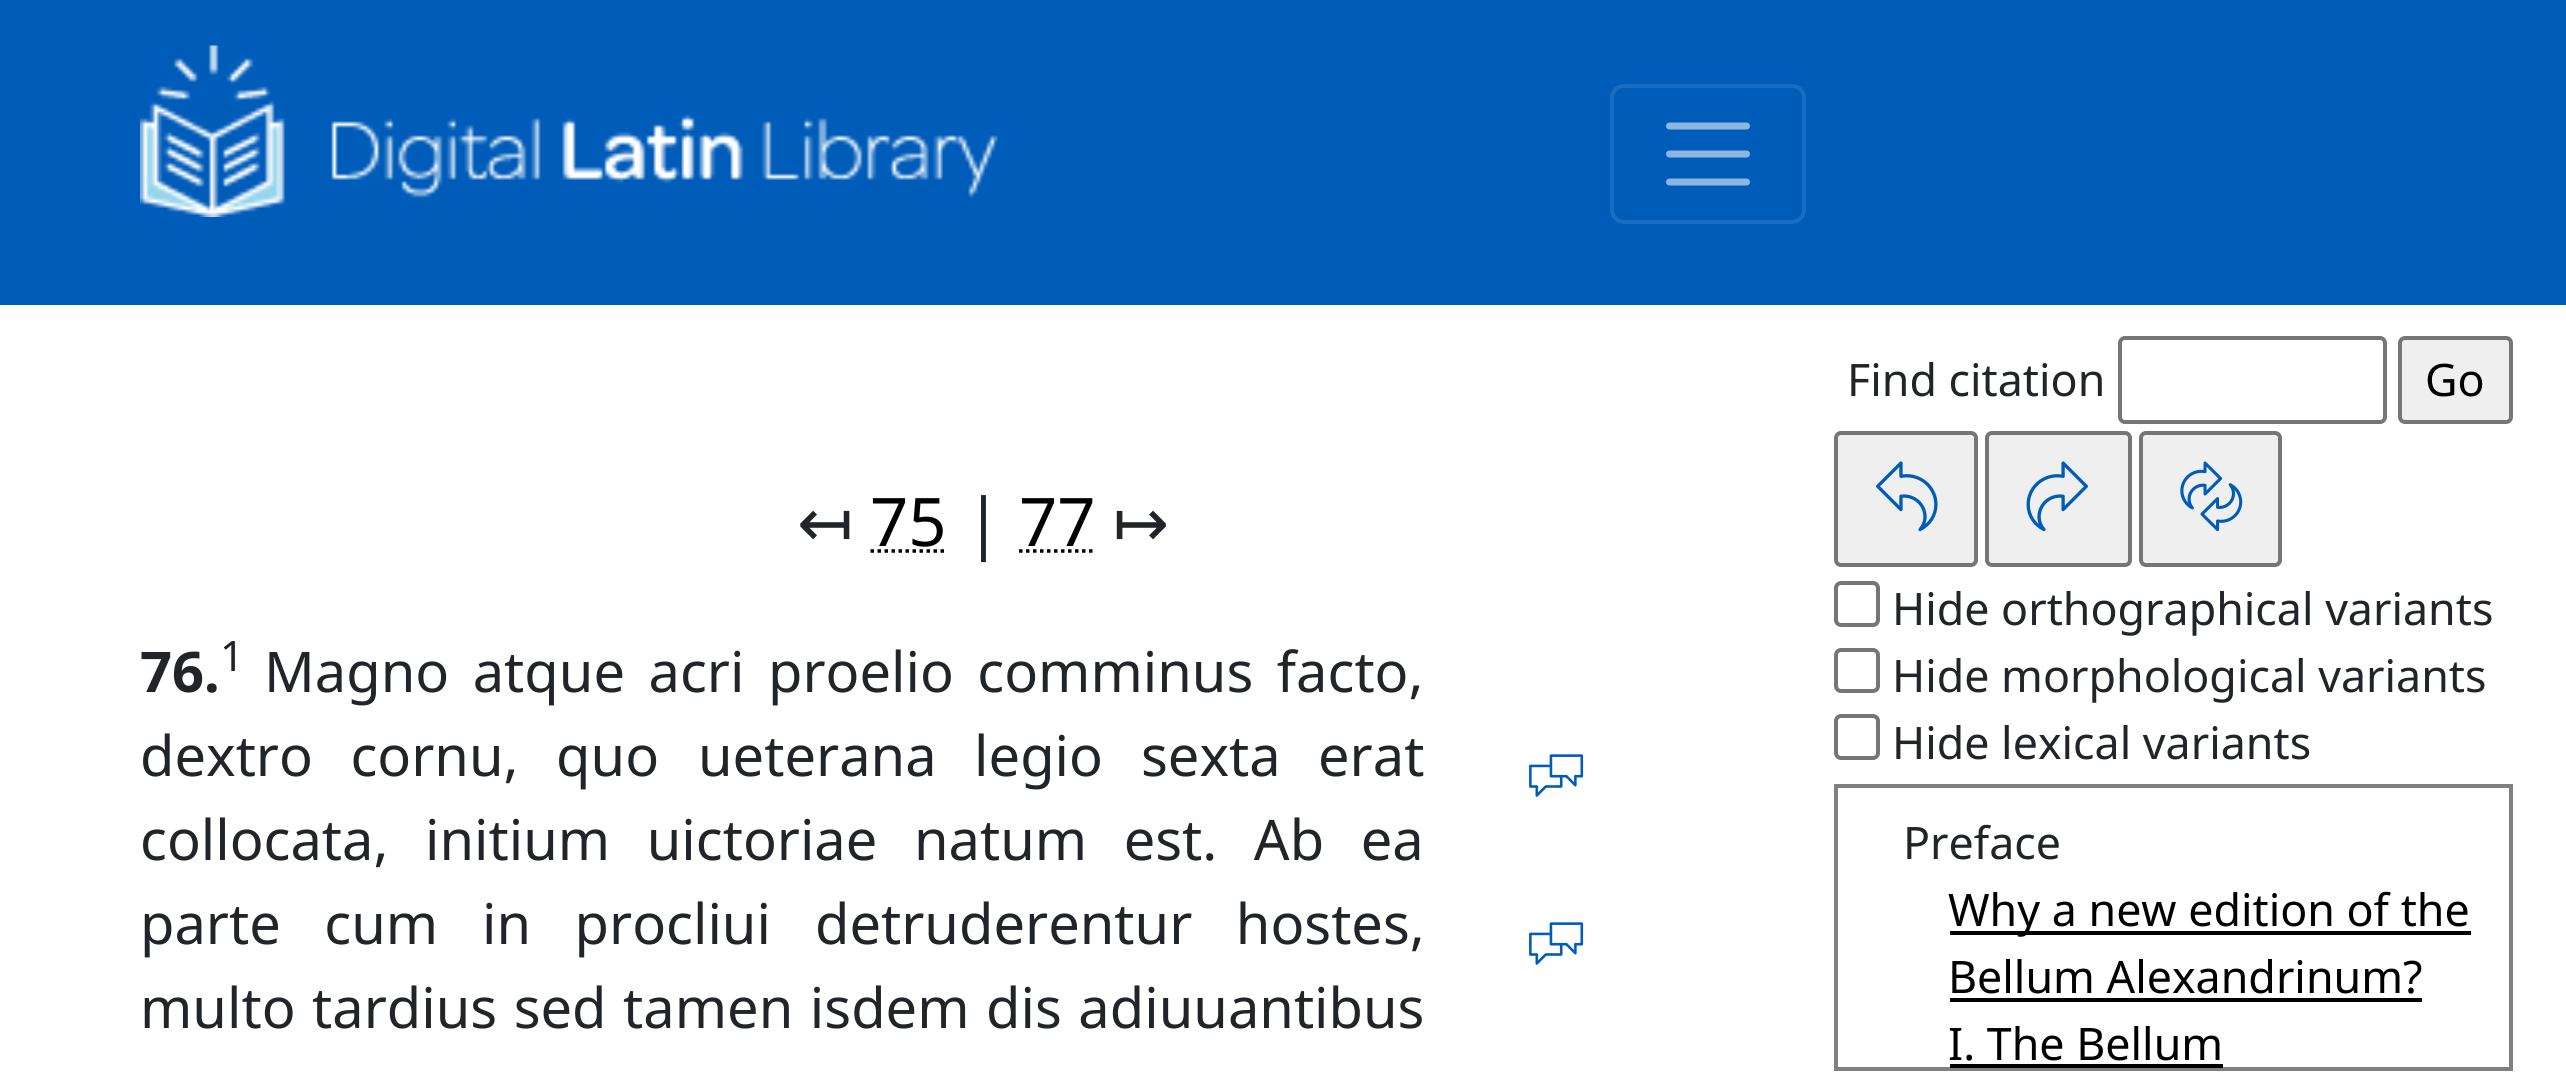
import math
import cairo

surface = cairo.ImageSurface(cairo.FORMAT_RGB24, 2566, 1080)
cr = cairo.Context(surface)
options = cairo.FontOptions()
options.set_hint_metrics(cairo.HINT_METRICS_OFF)
options.set_hint_style(cairo.HINT_STYLE_NONE)
cr.set_font_options(options)
cr.set_miter_limit(4)


def rgb(code):
    cr.set_source_rgb(*(v / 255 for v in bytes.fromhex(code[-6:])))


def tracked(x, y, s, letter, word):
    cr.move_to(x, y)
    for ch in s:
        cr.show_text(ch)
        cr.rel_move_to(letter + word * (ch == ' '), 0)


def rrect(x, y, w, h, r):
    cr.new_sub_path()
    for i, (u, v) in enumerate([(x + w - r, y + h - r), (x + r, y + h - r), (x + r, y + r), (x + w - r, y + r)]):
        cr.arc(u, v, r, i * math.pi / 2, (i + 1) * math.pi / 2)
    cr.close_path()


def image(path, x, y, w, h):
    cr.save()
    cr.set_source_surface(cairo.ImageSurface.create_from_png(path), x, y)
    cr.rectangle(x, y, w, h)
    cr.fill()
    cr.restore()


rgb("#ffffff")
cr.paint()
rgb("#005cb9")
cr.rectangle(0, 0, 2566, 305)
cr.fill()
image("img/1.png", 140, 45, 858, 172)
rrect(1612, 86, 192, 136, 12)
rgb("#1a6cc0")
cr.set_line_width(4)
cr.stroke()
cr.new_path()
cr.move_to(1669.5, 126)
cr.line_to(1746.5, 126)
cr.move_to(1669.5, 154)
cr.line_to(1746.5, 154)
cr.move_to(1669.5, 182)
cr.line_to(1746.5, 182)
rgb("#8cb6e0")
cr.set_line_width(7)
cr.set_line_cap(cairo.LINE_CAP_ROUND)
cr.stroke()
cr.new_path()
cr.move_to(870.5, 551)
cr.line_to(947, 551)
rgb("#000000")
cr.set_line_width(3.5)
cr.set_line_cap(cairo.LINE_CAP_BUTT)
cr.set_dash([3.5, 3.5])
cr.stroke()
cr.new_path()
cr.move_to(1019, 551)
cr.line_to(1096, 551)
cr.stroke()
rrect(2120, 338, 265, 84, 5)
rgb("#767676")
cr.set_line_width(4)
cr.set_dash([])
cr.stroke()
rgb("#efefef")
rrect(2400, 338, 111, 84, 5)
cr.fill_preserve()
rgb("#767676")
cr.stroke()
rgb("#efefef")
rrect(1836, 433, 140, 132, 5)
cr.fill_preserve()
rgb("#767676")
cr.stroke()
image("img/2.png", 1876, 461, 62, 71)
rgb("#efefef")
rrect(1987, 433, 143, 132, 5)
cr.fill_preserve()
rgb("#767676")
cr.stroke()
image("img/3.png", 2026, 461, 62, 71)
rgb("#efefef")
rrect(2141, 433, 139, 132, 5)
cr.fill_preserve()
rgb("#767676")
cr.stroke()
image("img/4.png", 2180, 461, 63, 71)
rrect(1836, 583, 42, 42, 5)
cr.stroke()
rrect(1836, 650, 42, 41, 5)
cr.stroke()
rrect(1836, 716, 42, 42, 5)
cr.stroke()
cr.rectangle(1836, 786, 675, 283)
rgb("#808080")
cr.stroke()
for x, y, w, h, color in [
    (1950, 931, 521, 4, "#000000"),
    (1950, 998, 472, 4, "#000000"),
    (1950, 1064, 273, 4, "#000000"),
]:
    rgb(color)
    cr.rectangle(x, y, w, h)
    cr.fill()
image("img/5.png", 1529, 754, 55, 43)
image("img/5.png", 1529, 922, 55, 43)
cr.select_font_face("DejaVu Sans")
cr.set_font_size(67)
rgb("#212529")
cr.move_to(797, 546)
cr.show_text("↤")
cr.select_font_face("Noto Sans")
rgb("#000000")
cr.move_to(870, 546)
cr.show_text("75")
rgb("#212529")
cr.move_to(965, 546)
cr.show_text("|")
rgb("#000000")
cr.move_to(1019, 546)
cr.show_text("77")
cr.select_font_face("DejaVu Sans")
rgb("#212529")
cr.move_to(1113, 546)
cr.show_text("↦")
cr.select_font_face("Noto Sans")
cr.set_font_size(44.75)
cr.move_to(1847, 396)
cr.show_text("Find citation")
rgb("#000000")
cr.move_to(2425, 396)
cr.show_text("Go")
rgb("#212529")
for x, y, s in [
    (1892, 625, "Hide orthographical variants"),
    (1892, 692, "Hide morphological variants"),
    (1892, 759, "Hide lexical variants"),
    (1903, 859, "Preface"),
]:
    cr.move_to(x, y)
    cr.show_text(s)
rgb("#000000")
for x, y, s in [
    (1948, 926, "Why a new edition of the"),
    (1948, 993, "Bellum Alexandrinum?"),
    (1948, 1060, "I. The Bellum"),
]:
    cr.move_to(x, y)
    cr.show_text(s)
cr.set_font_size(42)
rgb("#212529")
cr.move_to(220, 671)
cr.show_text("1")
cr.set_font_size(56)
tracked(264, 692, "Magno atque acri proelio comminus facto,", 0, 9)
tracked(140, 776, "dextro cornu, quo", 0, 23)
tracked(698, 776, "ueterana legio", 0, 23)
cr.move_to(1141, 776)
cr.show_text("sexta")
cr.move_to(1318, 776)
cr.show_text("erat")
tracked(140, 860, "collocata, initium uictoriae natum est. Ab ea", 0, 22)
for x, y, s in [
    (140, 944, "parte cum"),
    (482, 944, "in procliui"),
    (815, 944, "detruderentur hostes,"),
]:
    tracked(x, y, s, 0, 29)
tracked(140, 1028, "multo tardius sed tamen isdem dis adiuuantibus", 0, 2)
cr.select_font_face("Noto Sans", cairo.FONT_SLANT_NORMAL, cairo.FONT_WEIGHT_BOLD)
cr.move_to(140, 692)
cr.show_text("76.")
surface.write_to_png("page.png")
